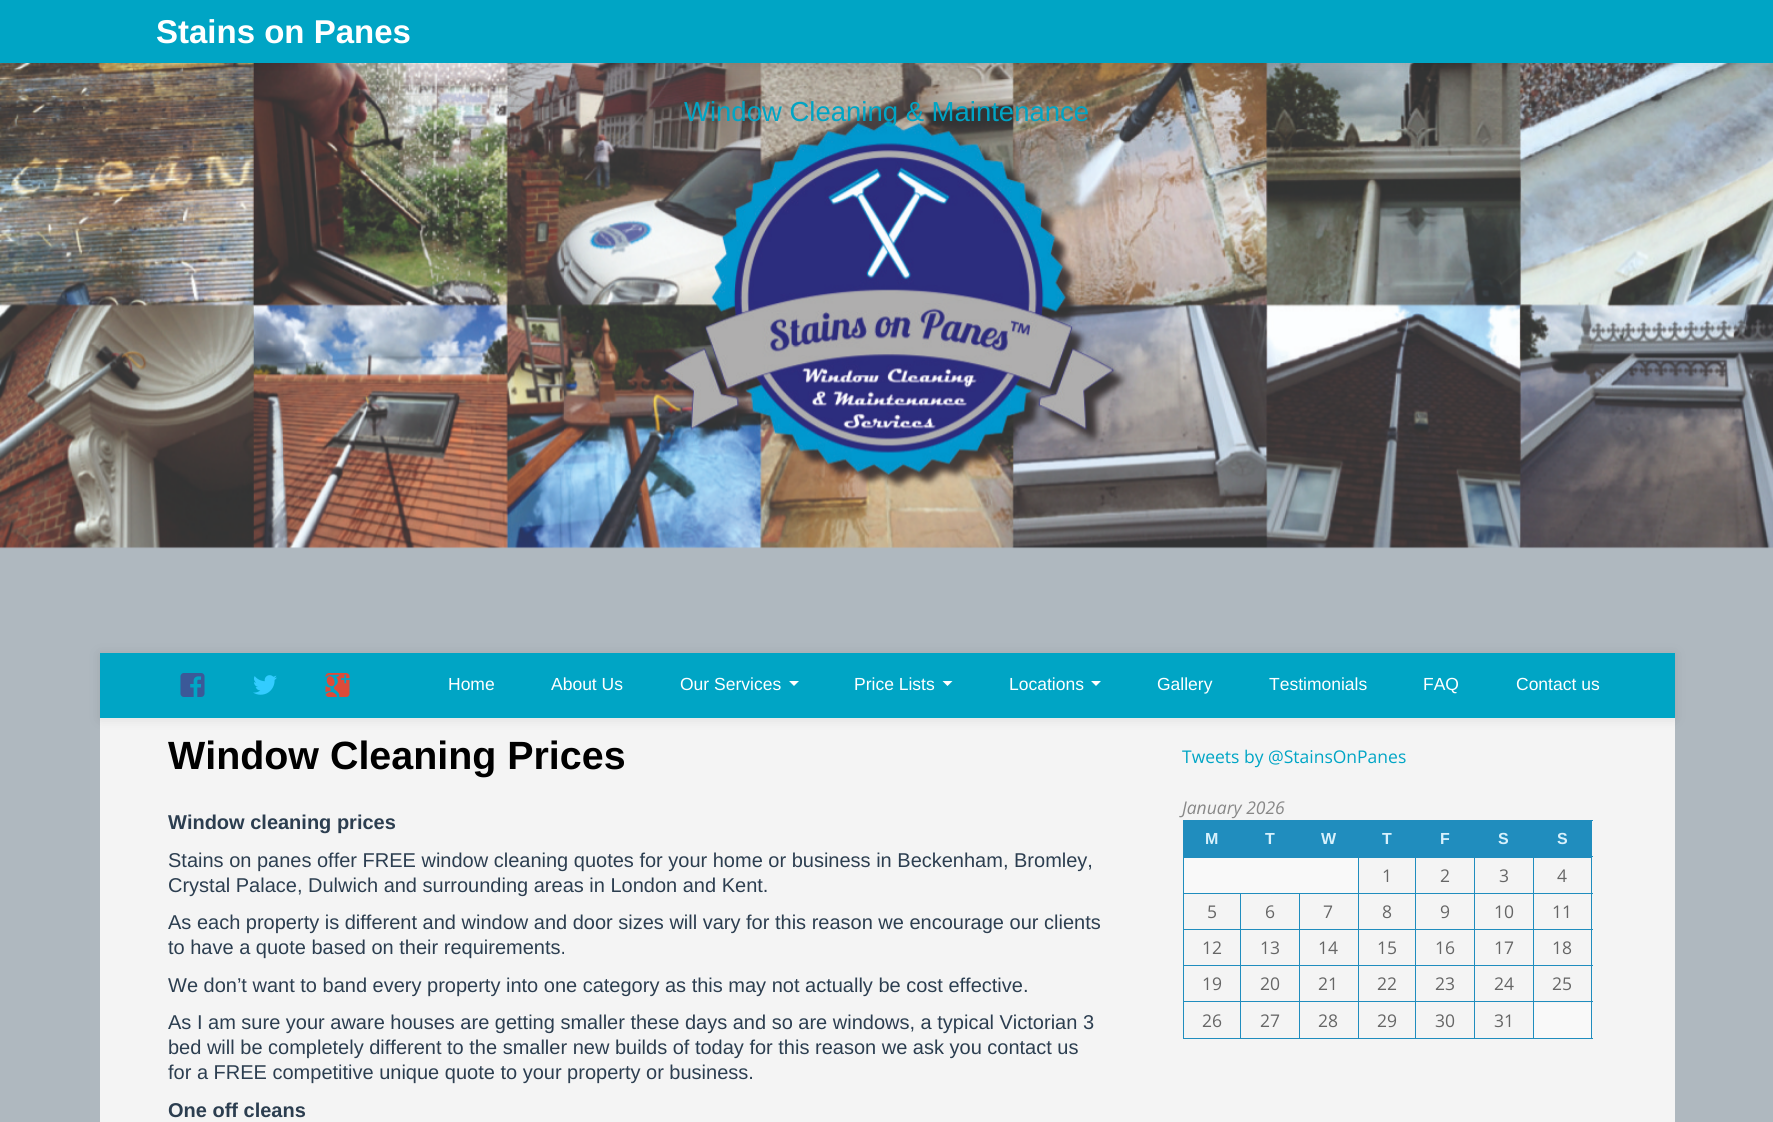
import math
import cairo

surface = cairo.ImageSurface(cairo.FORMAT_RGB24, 1773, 1122)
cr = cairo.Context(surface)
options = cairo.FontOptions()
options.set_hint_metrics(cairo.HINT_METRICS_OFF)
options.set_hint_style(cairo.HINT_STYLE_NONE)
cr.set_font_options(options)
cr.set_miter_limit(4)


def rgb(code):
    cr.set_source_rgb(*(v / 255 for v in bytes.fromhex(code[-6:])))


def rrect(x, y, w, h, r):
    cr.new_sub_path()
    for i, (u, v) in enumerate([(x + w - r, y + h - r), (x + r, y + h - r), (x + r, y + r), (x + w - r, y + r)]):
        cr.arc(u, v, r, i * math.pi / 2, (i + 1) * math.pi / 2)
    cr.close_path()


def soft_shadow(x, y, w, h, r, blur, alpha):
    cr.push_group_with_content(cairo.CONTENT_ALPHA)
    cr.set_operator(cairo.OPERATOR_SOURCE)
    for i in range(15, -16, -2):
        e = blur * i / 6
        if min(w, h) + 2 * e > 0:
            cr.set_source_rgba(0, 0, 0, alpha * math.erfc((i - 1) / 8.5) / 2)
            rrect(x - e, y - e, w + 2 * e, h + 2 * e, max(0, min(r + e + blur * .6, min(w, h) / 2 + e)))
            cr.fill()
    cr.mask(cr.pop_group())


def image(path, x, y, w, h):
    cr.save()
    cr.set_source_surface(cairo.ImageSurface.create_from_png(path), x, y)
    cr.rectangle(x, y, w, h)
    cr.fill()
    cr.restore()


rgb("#afb8bf")
cr.paint()
rgb("#00a5c5")
cr.rectangle(0, 0, 1773, 63)
cr.fill()
image("img/1.png", 0, 63, 1773, 486)
cr.save()
cr.set_fill_rule(cairo.FILL_RULE_EVEN_ODD)
cr.new_path()
cr.move_to(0, 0)
cr.line_to(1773, 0)
cr.line_to(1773, 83)
cr.line_to(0, 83)
cr.close_path()
cr.move_to(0, 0)
cr.line_to(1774, 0)
cr.line_to(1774, 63)
cr.line_to(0, 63)
cr.close_path()
cr.clip()
rgb("#000000")
soft_shadow(0, 1, 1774, 63, 0, 6, 0.1)
cr.restore()
rgb("#f4f4f4")
cr.rectangle(100, 718, 1575, 404)
cr.fill()
rgb("#00a5c5")
cr.rectangle(100, 653, 1575, 65)
cr.fill()
cr.save()
cr.set_fill_rule(cairo.FILL_RULE_EVEN_ODD)
cr.new_path()
cr.move_to(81, 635)
cr.line_to(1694, 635)
cr.line_to(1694, 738)
cr.line_to(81, 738)
cr.close_path()
cr.move_to(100, 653)
cr.line_to(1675, 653)
cr.line_to(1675, 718)
cr.line_to(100, 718)
cr.close_path()
cr.clip()
rgb("#000000")
soft_shadow(100, 654, 1575, 65, 0, 6, 0.1)
cr.restore()
image("img/2.png", 180, 673, 25, 24)
image("img/3.png", 253, 675, 24, 20)
image("img/4.png", 325, 673, 25, 24)
rgb("#ffffff")
cr.new_path()
cr.move_to(789, 681)
cr.line_to(799, 681)
cr.line_to(794, 686)
cr.close_path()
cr.fill()
cr.new_path()
cr.move_to(942.5, 681)
cr.line_to(952.5, 681)
cr.line_to(947.5, 686)
cr.close_path()
cr.fill()
cr.new_path()
cr.move_to(1091, 681)
cr.line_to(1101, 681)
cr.line_to(1096, 686)
cr.close_path()
cr.fill()
for x, y, w, h, color in [
    (1184, 821, 407, 37, "#208dbe"),
    (1183, 820, 1, 219, "#208dbe"),
    (1183, 820, 410, 1, "#208dbe"),
    (1591, 856, 1, 183, "#208dbe"),
    (1591, 820, 1, 38, "#208dbe"),
    (1592, 856, 1, 1, "#208dbe"),
    (1184, 858, 174, 35, "#f9f9f9"),
    (1533, 1038, 60, 1, "#208dbe"),
    (1533, 1001, 1, 38, "#208dbe"),
    (1533, 1001, 60, 1, "#208dbe"),
    (1533, 965, 1, 38, "#208dbe"),
    (1533, 965, 60, 1, "#208dbe"),
    (1533, 929, 1, 37, "#208dbe"),
    (1533, 929, 60, 1, "#208dbe"),
    (1533, 893, 1, 37, "#208dbe"),
    (1533, 893, 60, 1, "#208dbe"),
    (1533, 856, 1, 38, "#208dbe"),
    (1474, 1038, 60, 1, "#208dbe"),
    (1474, 1001, 1, 38, "#208dbe"),
    (1474, 1001, 60, 1, "#208dbe"),
    (1474, 965, 1, 38, "#208dbe"),
    (1474, 965, 60, 1, "#208dbe"),
    (1474, 929, 1, 37, "#208dbe"),
    (1474, 929, 60, 1, "#208dbe"),
    (1474, 893, 1, 37, "#208dbe"),
    (1474, 893, 60, 1, "#208dbe"),
    (1474, 856, 1, 38, "#208dbe"),
    (1415, 1038, 60, 1, "#208dbe"),
    (1415, 1001, 1, 38, "#208dbe"),
    (1415, 1001, 60, 1, "#208dbe"),
    (1415, 965, 1, 38, "#208dbe"),
    (1415, 965, 60, 1, "#208dbe"),
    (1415, 929, 1, 37, "#208dbe"),
    (1415, 929, 60, 1, "#208dbe"),
    (1415, 893, 1, 37, "#208dbe"),
    (1415, 893, 60, 1, "#208dbe"),
    (1415, 856, 1, 38, "#208dbe"),
    (1358, 1038, 58, 1, "#208dbe"),
    (1358, 1001, 1, 38, "#208dbe"),
    (1358, 1001, 58, 1, "#208dbe"),
    (1358, 965, 1, 38, "#208dbe"),
    (1358, 965, 58, 1, "#208dbe"),
    (1358, 929, 1, 37, "#208dbe"),
    (1358, 929, 58, 1, "#208dbe"),
    (1358, 893, 1, 37, "#208dbe"),
    (1358, 893, 58, 1, "#208dbe"),
    (1358, 856, 1, 38, "#208dbe"),
    (1299, 1038, 60, 1, "#208dbe"),
    (1299, 1001, 1, 38, "#208dbe"),
    (1299, 1001, 60, 1, "#208dbe"),
    (1299, 965, 1, 38, "#208dbe"),
    (1299, 965, 60, 1, "#208dbe"),
    (1299, 929, 1, 37, "#208dbe"),
    (1299, 929, 60, 1, "#208dbe"),
    (1299, 893, 1, 37, "#208dbe"),
    (1240, 1038, 60, 1, "#208dbe"),
    (1240, 1001, 1, 38, "#208dbe"),
    (1240, 1001, 60, 1, "#208dbe"),
    (1240, 965, 1, 38, "#208dbe"),
    (1240, 965, 60, 1, "#208dbe"),
    (1240, 929, 1, 37, "#208dbe"),
    (1240, 929, 60, 1, "#208dbe"),
    (1240, 893, 1, 37, "#208dbe"),
    (1183, 893, 176, 1, "#208dbe"),
    (1183, 929, 58, 1, "#208dbe"),
    (1183, 965, 58, 1, "#208dbe"),
    (1183, 1001, 58, 1, "#208dbe"),
    (1183, 1038, 58, 1, "#208dbe"),
    (1534, 1003, 57, 35, "#f9f9f9"),
]:
    rgb(color)
    cr.rectangle(x, y, w, h)
    cr.fill()
cr.select_font_face("Liberation Sans", cairo.FONT_SLANT_NORMAL, cairo.FONT_WEIGHT_BOLD)
cr.set_font_size(33)
rgb("#ffffff")
cr.move_to(156, 43)
cr.show_text("Stains on Panes")
cr.select_font_face("Liberation Sans")
cr.set_font_size(27.5)
rgb("#00a5c5")
cr.move_to(684, 121)
cr.show_text("Window Cleaning & Maintenance")
cr.set_font_size(17.5)
rgb("#ffffff")
for x, y, s in [
    (448, 690, "Home"),
    (551, 690, "About Us"),
    (680, 690, "Our Services"),
    (854, 690, "Price Lists"),
    (1009, 690, "Locations"),
    (1157, 690, "Gallery"),
    (1269, 690, "Testimonials"),
    (1423, 690, "FAQ"),
    (1516, 690, "Contact us"),
]:
    cr.move_to(x, y)
    cr.show_text(s)
cr.select_font_face("Liberation Sans", cairo.FONT_SLANT_NORMAL, cairo.FONT_WEIGHT_BOLD)
cr.set_font_size(39.4)
rgb("#000000")
cr.move_to(168, 769)
cr.show_text("Window Cleaning Prices")
cr.set_font_size(20)
rgb("#2c3e50")
cr.move_to(168, 829)
cr.show_text("Window cleaning prices")
cr.select_font_face("Liberation Sans")
for x, y, s in [
    (168, 867, "Stains on panes offer FREE window cleaning quotes for your home or business in Beckenham, Bromley,"),
    (168, 892, "Crystal Palace, Dulwich and surrounding areas in London and Kent."),
    (168, 929, "As each property is different and window and door sizes will vary for this reason we encourage our clients"),
    (168, 954, "to have a quote based on their requirements."),
    (168, 992, "We don’t want to band every property into one category as this may not actually be cost effective."),
    (168, 1029, "As I am sure your aware houses are getting smaller these days and so are windows, a typical Victorian 3"),
    (168, 1054, "bed will be completely different to the smaller new builds of today for this reason we ask you contact us"),
    (168, 1079, "for a FREE competitive unique quote to your property or business."),
]:
    cr.move_to(x, y)
    cr.show_text(s)
cr.select_font_face("Liberation Sans", cairo.FONT_SLANT_NORMAL, cairo.FONT_WEIGHT_BOLD)
cr.move_to(168, 1117)
cr.show_text("One off cleans")
cr.select_font_face("Open Sans")
cr.set_font_size(17.5)
rgb("#00a5c5")
cr.move_to(1182, 763)
cr.show_text("Tweets by @StainsOnPanes")
cr.select_font_face("Open Sans", cairo.FONT_SLANT_ITALIC)
rgb("#888888")
cr.move_to(1182, 814)
cr.show_text("January 2026")
cr.select_font_face("Liberation Sans", cairo.FONT_SLANT_NORMAL, cairo.FONT_WEIGHT_BOLD)
cr.set_font_size(16)
rgb("#d8f1fc")
for x, y, s in [
    (1205, 844, "M"),
    (1265, 844, "T"),
    (1321, 844, "W"),
    (1382, 844, "T"),
    (1440, 844, "F"),
    (1498, 844, "S"),
    (1557, 844, "S"),
]:
    cr.move_to(x, y)
    cr.show_text(s)
cr.select_font_face("Open Sans")
cr.set_font_size(17.5)
rgb("#666666")
for x, y, s in [
    (1382, 882, "1"),
    (1440, 882, "2"),
    (1499, 882, "3"),
    (1557, 882, "4"),
    (1207, 918, "5"),
    (1265, 918, "6"),
    (1323, 918, "7"),
    (1382, 918, "8"),
    (1440, 918, "9"),
    (1494, 918, "10"),
    (1552, 918, "11"),
    (1202, 954, "12"),
    (1260, 954, "13"),
    (1318, 954, "14"),
    (1377, 954, "15"),
    (1435, 954, "16"),
    (1494, 954, "17"),
    (1552, 954, "18"),
    (1202, 990, "19"),
    (1260, 990, "20"),
    (1318, 990, "21"),
    (1377, 990, "22"),
    (1435, 990, "23"),
    (1494, 990, "24"),
    (1552, 990, "25"),
    (1202, 1027, "26"),
    (1260, 1027, "27"),
    (1318, 1027, "28"),
    (1377, 1027, "29"),
    (1435, 1027, "30"),
    (1494, 1027, "31"),
]:
    cr.move_to(x, y)
    cr.show_text(s)
surface.write_to_png("page.png")
